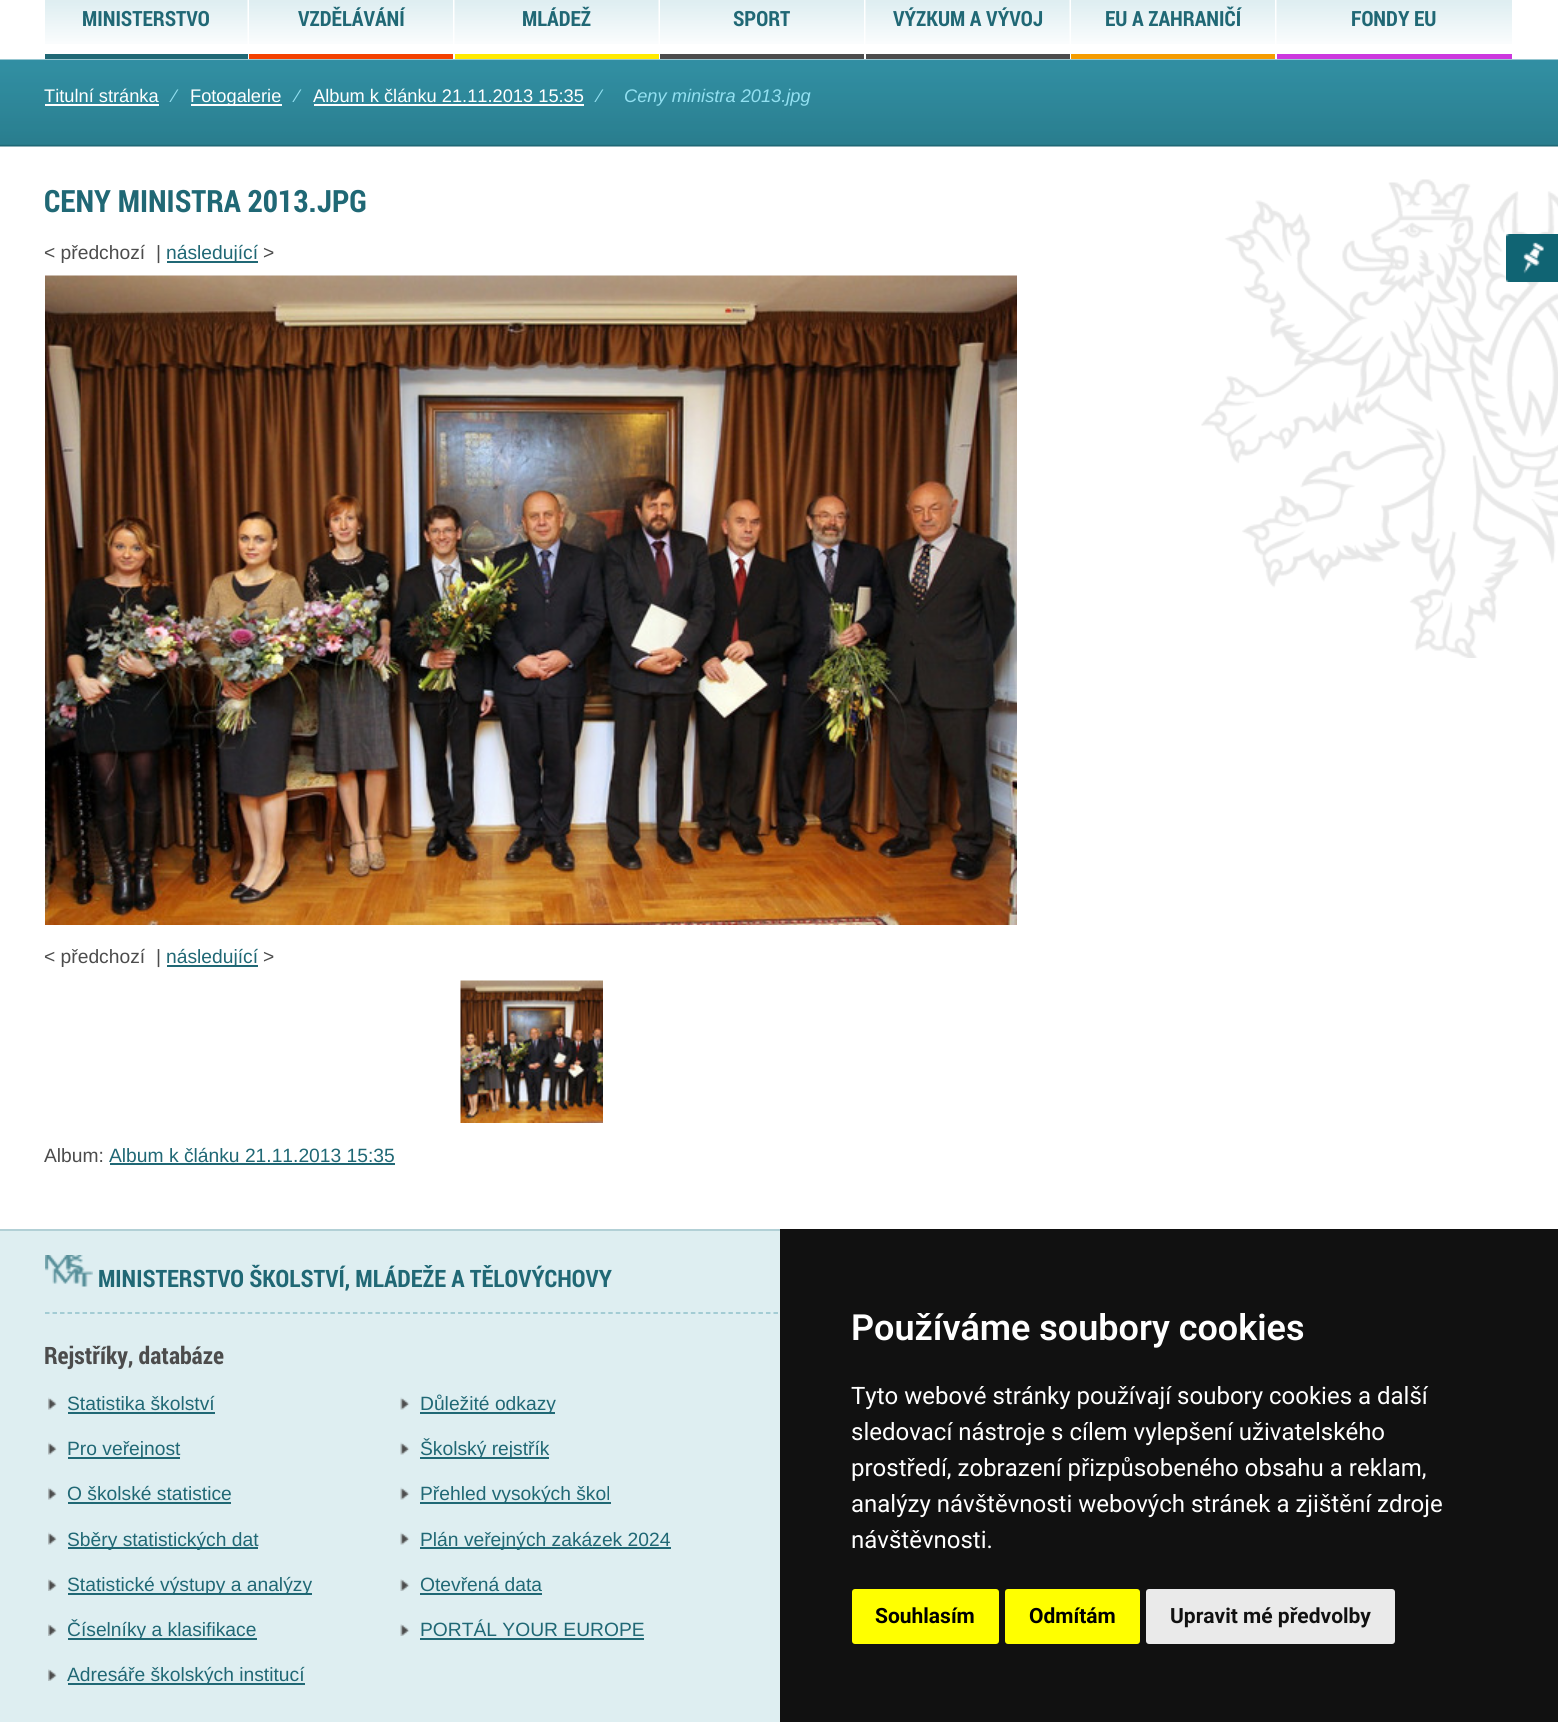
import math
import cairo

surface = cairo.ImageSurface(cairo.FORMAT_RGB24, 1558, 1722)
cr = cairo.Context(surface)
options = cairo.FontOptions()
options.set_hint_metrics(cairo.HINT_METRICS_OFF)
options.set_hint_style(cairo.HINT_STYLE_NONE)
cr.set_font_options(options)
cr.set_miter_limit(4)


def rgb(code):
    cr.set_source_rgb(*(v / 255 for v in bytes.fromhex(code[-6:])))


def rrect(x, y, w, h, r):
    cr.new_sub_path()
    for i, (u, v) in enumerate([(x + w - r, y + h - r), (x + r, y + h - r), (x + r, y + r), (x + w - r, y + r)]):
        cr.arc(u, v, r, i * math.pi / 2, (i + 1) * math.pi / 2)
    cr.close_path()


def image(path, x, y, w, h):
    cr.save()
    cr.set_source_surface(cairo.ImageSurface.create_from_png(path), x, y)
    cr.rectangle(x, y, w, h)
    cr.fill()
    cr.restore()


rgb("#ffffff")
cr.paint()
image("img/1.png", 0, 59, 1558, 88)
image("img/2.png", 1201, 179, 357, 479)
image("img/3.png", 45, 0, 203, 44)
rgb("#206875")
cr.rectangle(45, 54, 203, 5)
cr.fill()
image("img/4.png", 249, 0, 204, 44)
rgb("#f34100")
cr.rectangle(249, 54, 204, 5)
cr.fill()
image("img/5.png", 454, 0, 205, 44)
rgb("#ffea00")
cr.rectangle(455, 54, 204, 5)
cr.fill()
image("img/4.png", 660, 0, 204, 44)
rgb("#4c4c4c")
cr.rectangle(660, 54, 204, 5)
cr.fill()
image("img/5.png", 865, 0, 205, 44)
cr.rectangle(866, 54, 204, 5)
cr.fill()
image("img/4.png", 1071, 0, 204, 44)
rgb("#f59c00")
cr.rectangle(1071, 54, 204, 5)
cr.fill()
image("img/6.png", 1276, 0, 236, 44)
rgb("#cc37de")
cr.rectangle(1277, 54, 235, 5)
cr.fill()
image("img/7.png", 1506, 234, 52, 48)
for x, y, w, h, color in [
    (45, 104, 114, 2, "#ffffff"),
    (191, 104, 91, 2, "#ffffff"),
    (314, 104, 270, 2, "#ffffff"),
    (167, 261, 91, 2, "#206875"),
]:
    rgb(color)
    cr.rectangle(x, y, w, h)
    cr.fill()
image("img/8.png", 45, 275, 972, 650)
cr.rectangle(167, 965, 91, 2)
cr.fill()
image("img/9.png", 460, 980, 143, 143)
for x, y, w, h, color in [
    (110, 1163, 285, 2, "#206875"),
    (0, 1231, 780, 491, "#deeef1"),
    (0, 1229, 780, 2, "#b2d0d6"),
]:
    rgb(color)
    cr.rectangle(x, y, w, h)
    cr.fill()
image("img/10.png", 45, 1255, 48, 32)
cr.new_path()
cr.move_to(45, 1313)
cr.line_to(1515, 1313)
rgb("#90c1ca")
cr.set_line_width(1.5)
cr.set_dash([4.5, 3.01])
cr.stroke()
image("img/11.png", 48, 1397, 9, 13)
rgb("#206875")
cr.rectangle(68, 1412, 147, 2)
cr.fill()
image("img/11.png", 48, 1442, 9, 13)
cr.rectangle(68, 1457, 112, 2)
cr.fill()
image("img/11.png", 48, 1487, 9, 13)
cr.rectangle(68, 1502, 163, 2)
cr.fill()
image("img/11.png", 48, 1532, 9, 13)
cr.rectangle(68, 1547, 190, 2)
cr.fill()
image("img/12.png", 48, 1579, 9, 12)
cr.rectangle(68, 1593, 244, 2)
cr.fill()
image("img/12.png", 48, 1624, 9, 12)
cr.rectangle(68, 1638, 189, 2)
cr.fill()
image("img/12.png", 48, 1669, 9, 12)
cr.rectangle(68, 1683, 237, 2)
cr.fill()
image("img/13.png", 400, 1397, 10, 13)
cr.rectangle(420, 1412, 135, 2)
cr.fill()
image("img/13.png", 400, 1442, 10, 13)
cr.rectangle(420, 1457, 129, 2)
cr.fill()
image("img/13.png", 400, 1487, 10, 13)
cr.rectangle(420, 1502, 191, 2)
cr.fill()
image("img/13.png", 400, 1532, 10, 13)
cr.rectangle(420, 1547, 251, 2)
cr.fill()
image("img/14.png", 400, 1579, 10, 12)
cr.rectangle(420, 1593, 122, 2)
cr.fill()
image("img/14.png", 400, 1624, 10, 12)
cr.rectangle(420, 1638, 224, 2)
cr.fill()
rgb("#111111")
cr.rectangle(780, 1229, 778, 493)
cr.fill()
rgb("#ffff00")
rrect(852, 1589, 147, 55, 3)
cr.fill()
rrect(1005, 1589, 135, 55, 3)
cr.fill()
rgb("#eaeaea")
rrect(1146, 1589, 249, 55, 3)
cr.fill()
cr.select_font_face("Roboto Condensed", cairo.FONT_SLANT_NORMAL, cairo.FONT_WEIGHT_BOLD)
cr.set_font_size(21)
rgb("#206875")
for x, y, s in [
    (82, 26, "MINISTERSTVO"),
    (298, 26, "VZDĚLÁVÁNÍ"),
    (522, 26, "MLÁDEŽ"),
    (733, 26, "SPORT"),
    (893, 26, "VÝZKUM A VÝVOJ"),
    (1105, 26, "EU A ZAHRANIČÍ"),
    (1351, 26, "FONDY EU"),
]:
    cr.move_to(x, y)
    cr.show_text(s)
cr.select_font_face("Liberation Sans")
cr.set_font_size(18.25)
rgb("#ffffff")
cr.move_to(44, 102)
cr.show_text("Titulní stránka")
rgb("#92e0f1")
cr.move_to(173, 102)
cr.show_text("⁄")
rgb("#ffffff")
cr.move_to(190, 102)
cr.show_text("Fotogalerie")
rgb("#92e0f1")
cr.move_to(296, 102)
cr.show_text("⁄")
rgb("#ffffff")
cr.move_to(313, 102)
cr.show_text("Album k článku 21.11.2013 15:35")
rgb("#92e0f1")
cr.move_to(598, 102)
cr.show_text("⁄")
cr.select_font_face("Liberation Sans", cairo.FONT_SLANT_ITALIC)
cr.move_to(624, 102)
cr.show_text("Ceny ministra 2013.jpg")
cr.select_font_face("Roboto Condensed", cairo.FONT_SLANT_NORMAL, cairo.FONT_WEIGHT_BOLD)
cr.set_font_size(30.75)
rgb("#206875")
cr.move_to(44, 212)
cr.show_text("CENY MINISTRA 2013.JPG")
cr.select_font_face("Liberation Sans")
cr.set_font_size(19.25)
rgb("#4c4c4c")
cr.move_to(44, 259)
cr.show_text("< předchozí")
cr.move_to(156, 259)
cr.show_text("|")
rgb("#206875")
cr.move_to(166, 259)
cr.show_text("následující")
rgb("#4c4c4c")
for x, y, s in [
    (263, 259, ">"),
    (44, 963, "< předchozí"),
    (156, 963, "|"),
]:
    cr.move_to(x, y)
    cr.show_text(s)
rgb("#206875")
cr.move_to(166, 963)
cr.show_text("následující")
rgb("#4c4c4c")
cr.move_to(263, 963)
cr.show_text(">")
cr.move_to(44, 1162)
cr.show_text("Album:")
rgb("#206875")
cr.move_to(109, 1162)
cr.show_text("Album k článku 21.11.2013 15:35")
cr.select_font_face("Roboto Condensed", cairo.FONT_SLANT_NORMAL, cairo.FONT_WEIGHT_BOLD)
cr.set_font_size(24)
cr.move_to(98, 1287)
cr.show_text("MINISTERSTVO ŠKOLSTVÍ, MLÁDEŽE A TĚLOVÝCHOVY")
rgb("#4c4c4c")
cr.move_to(44, 1364)
cr.show_text("Rejstříky, databáze")
cr.select_font_face("Liberation Sans")
cr.set_font_size(19.25)
rgb("#206875")
for x, y, s in [
    (67, 1410, "Statistika školství"),
    (67, 1455, "Pro veřejnost"),
    (67, 1500, "O školské statistice"),
    (67, 1546, "Sběry statistických dat"),
    (67, 1591, "Statistické výstupy a analýzy"),
    (67, 1636, "Číselníky a klasifikace"),
    (67, 1681, "Adresáře školských institucí"),
    (420, 1410, "Důležité odkazy"),
    (420, 1455, "Školský rejstřík"),
    (420, 1500, "Přehled vysokých škol"),
    (420, 1546, "Plán veřejných zakázek 2024"),
    (420, 1591, "Otevřená data"),
    (420, 1636, "PORTÁL YOUR EUROPE"),
]:
    cr.move_to(x, y)
    cr.show_text(s)
cr.select_font_face("Roboto SemiBold")
cr.set_font_size(36)
rgb("#ffffff")
cr.move_to(851, 1340)
cr.show_text("Používáme soubory cookies")
cr.select_font_face("Roboto")
cr.set_font_size(24)
for x, y, s in [
    (851, 1404, "Tyto webové stránky používají soubory cookies a další"),
    (851, 1440, "sledovací nástroje s cílem vylepšení uživatelského"),
    (851, 1476, "prostředí, zobrazení přizpůsobeného obsahu a reklam,"),
    (851, 1512, "analýzy návštěvnosti webových stránek a zjištění zdroje"),
    (851, 1548, "návštěvnosti."),
]:
    cr.move_to(x, y)
    cr.show_text(s)
cr.select_font_face("Roboto", cairo.FONT_SLANT_NORMAL, cairo.FONT_WEIGHT_BOLD)
cr.set_font_size(21)
rgb("#000000")
cr.move_to(875, 1623)
cr.show_text("Souhlasím")
cr.move_to(1029, 1623)
cr.show_text("Odmítám")
rgb("#111111")
cr.move_to(1170, 1623)
cr.show_text("Upravit mé předvolby")
surface.write_to_png("page.png")
